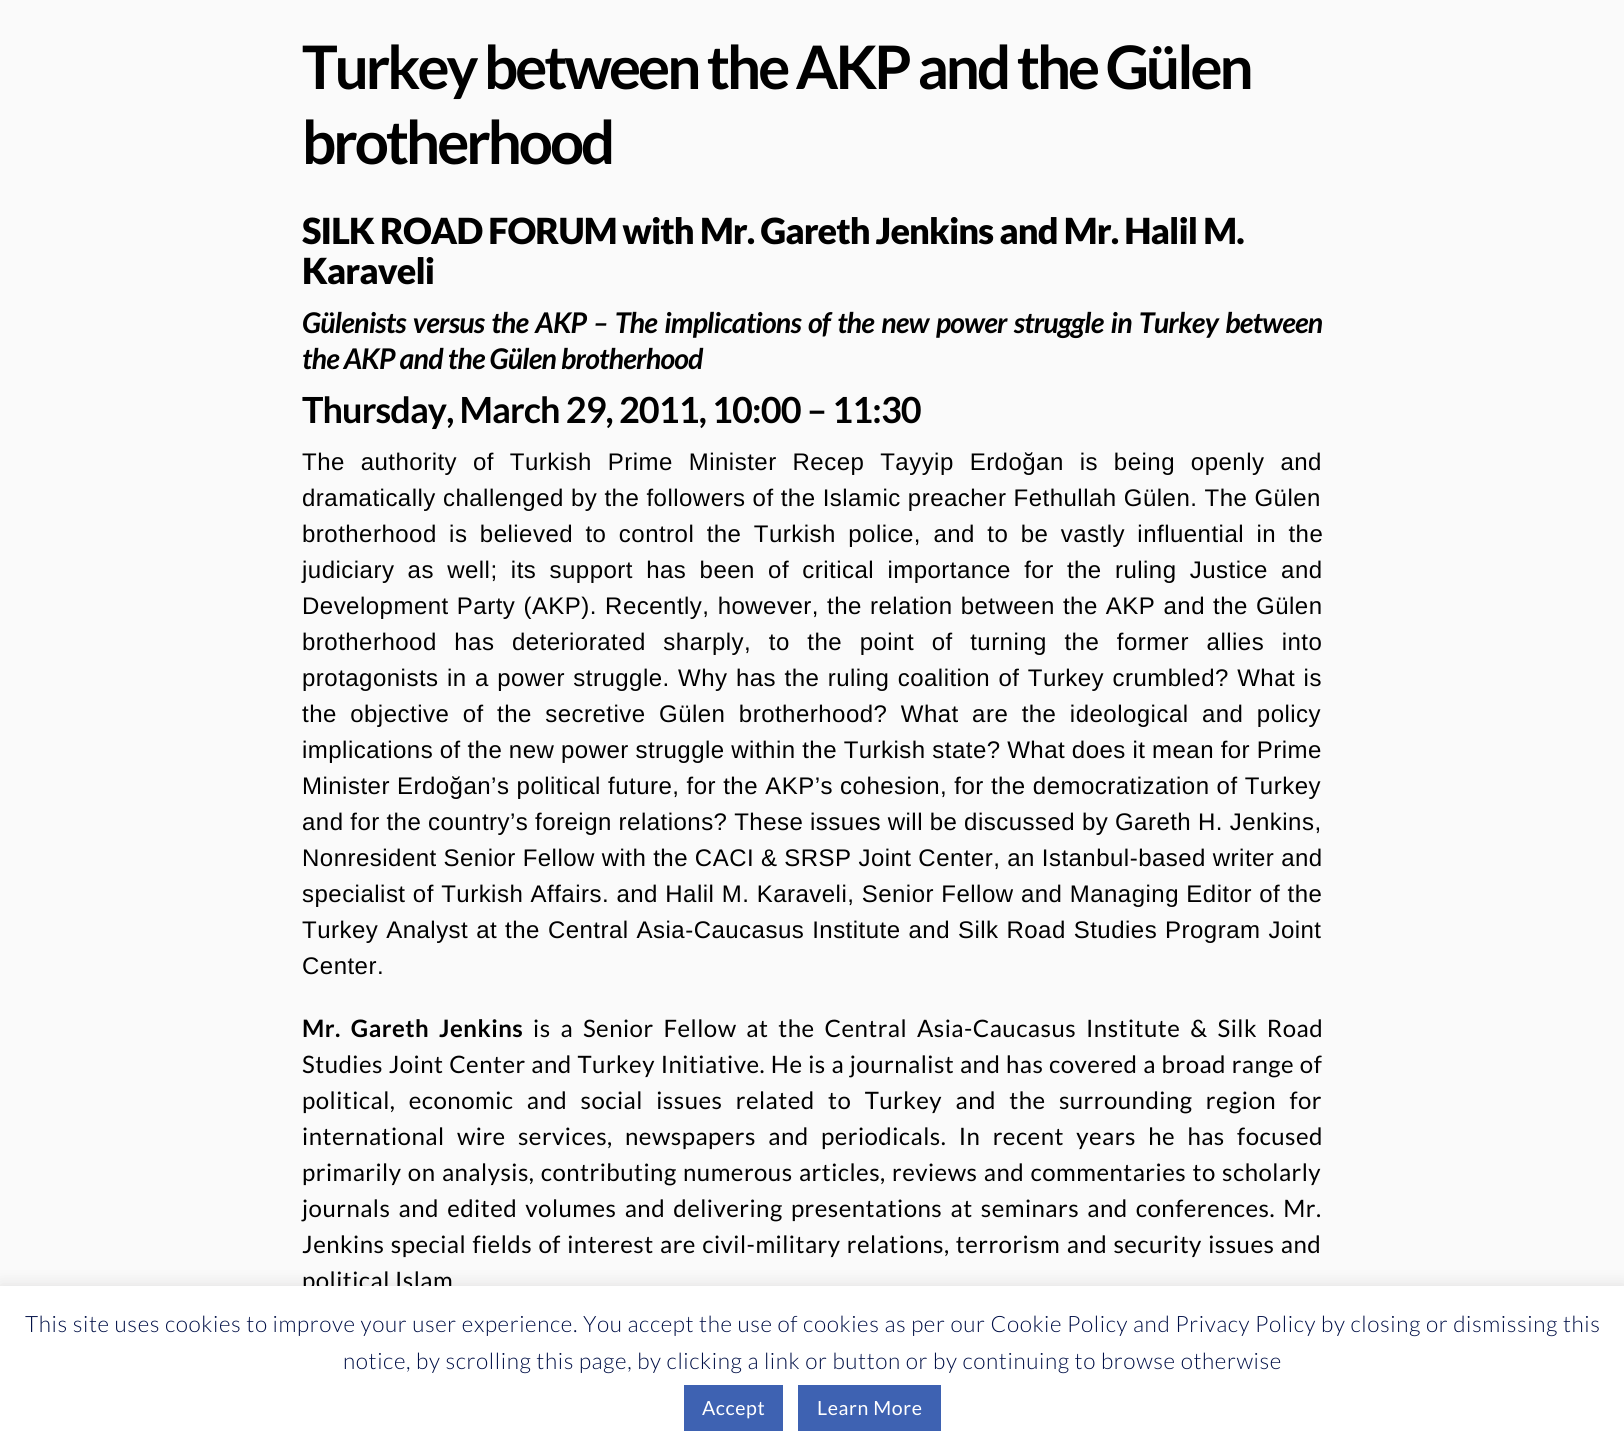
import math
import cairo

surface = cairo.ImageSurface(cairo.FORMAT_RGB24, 1624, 1456)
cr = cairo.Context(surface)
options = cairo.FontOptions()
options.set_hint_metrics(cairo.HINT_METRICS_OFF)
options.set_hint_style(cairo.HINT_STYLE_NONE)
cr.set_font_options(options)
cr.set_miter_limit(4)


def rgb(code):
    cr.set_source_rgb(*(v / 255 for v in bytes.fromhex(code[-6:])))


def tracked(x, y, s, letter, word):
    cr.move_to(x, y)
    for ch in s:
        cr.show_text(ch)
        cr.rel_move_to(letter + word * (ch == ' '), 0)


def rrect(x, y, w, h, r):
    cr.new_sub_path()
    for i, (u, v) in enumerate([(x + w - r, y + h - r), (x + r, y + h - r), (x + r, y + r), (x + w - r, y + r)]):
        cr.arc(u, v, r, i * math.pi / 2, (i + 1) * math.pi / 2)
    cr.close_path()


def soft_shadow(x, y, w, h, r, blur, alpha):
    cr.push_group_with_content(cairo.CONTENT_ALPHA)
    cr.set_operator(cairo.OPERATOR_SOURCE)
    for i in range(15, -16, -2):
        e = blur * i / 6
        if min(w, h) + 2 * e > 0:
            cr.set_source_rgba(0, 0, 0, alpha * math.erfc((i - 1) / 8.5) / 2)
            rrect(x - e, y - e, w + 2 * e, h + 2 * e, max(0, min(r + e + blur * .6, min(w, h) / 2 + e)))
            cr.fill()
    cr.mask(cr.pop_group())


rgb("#fafafa")
cr.paint()
rgb("#acabab")
soft_shadow(0, 1284, 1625, 171, 0, 7.5, 0.3)
cr.select_font_face("Lato", cairo.FONT_SLANT_NORMAL, cairo.FONT_WEIGHT_BOLD)
cr.set_font_size(60)
rgb("#000000")
tracked(302, 89, "Turkey between the AKP and the Gülen", -3, 0)
tracked(302, 164, "brotherhood", -3, 0)
cr.select_font_face("Lato Black")
cr.set_font_size(36)
tracked(302, 244, "SILK ROAD FORUM with Mr. Gareth Jenkins and Mr. Halil M.", -0.9, 0)
tracked(302, 284, "Karaveli", -0.9, 0)
cr.select_font_face("Lato", cairo.FONT_SLANT_ITALIC, cairo.FONT_WEIGHT_BOLD)
cr.set_font_size(28.5)
tracked(302, 333, "Gülenists versus the AKP – The implications of the new power struggle in Turkey between", -0.7, 2.25)
tracked(302, 369, "the AKP and the Gülen brotherhood", -0.7, 0)
cr.select_font_face("Lato", cairo.FONT_SLANT_NORMAL, cairo.FONT_WEIGHT_BOLD)
cr.set_font_size(36)
tracked(302, 423, "Thursday, March 29, 2011, 10:00 – 11:30", -0.9, 0)
cr.select_font_face("Liberation Sans")
cr.set_font_size(24)
tracked(302, 470, "The authority of Turkish Prime Minister Recep Tayyip Erdoğan is being openly and", 0.48, 8.75)
tracked(302, 506, "dramatically challenged by the followers of the Islamic preacher Fethullah Gülen. The Gülen", 0.48, 0)
tracked(302, 542, "brotherhood is believed to control the Turkish police, and to be vastly influential in the", 0.48, 5.25)
tracked(302, 578, "judiciary as well; its support has been of critical importance for the ruling Justice and", 0.48, 6.1)
tracked(302, 614, "Development Party (AKP). Recently, however, the relation between the AKP and the Gülen", 0.48, 1)
tracked(302, 650, "brotherhood has deteriorated sharply, to the point of turning the former allies into", 0.48, 10.4)
tracked(302, 686, "protagonists in a power struggle. Why has the ruling coalition of Turkey crumbled? What is", 0.48, 1.25)
tracked(302, 722, "the objective of the secretive Gülen brotherhood? What are the ideological and policy", 0.48, 6.25)
tracked(302, 758, "implications of the new power struggle within the Turkish state? What does it mean for Prime", 0.48, -0.5)
tracked(302, 794, "Minister Erdoğan’s political future, for the AKP’s cohesion, for the democratization of Turkey", 0.48, 0)
tracked(302, 830, "and for the country’s foreign relations? These issues will be discussed by Gareth H. Jenkins,", 0.48, -0.4)
tracked(302, 866, "Nonresident Senior Fellow with the CACI & SRSP Joint Center, an Istanbul-based writer and", 0.48, -0.3)
tracked(302, 902, "specialist of Turkish Affairs. and Halil M. Karaveli, Senior Fellow and Managing Editor of the", 0.48, 0.2)
tracked(302, 938, "Turkey Analyst at the Central Asia-Caucasus Institute and Silk Road Studies Program Joint", 0.48, 0.8)
tracked(302, 974, "Center.", 0.48, 0)
cr.select_font_face("Lato", cairo.FONT_SLANT_NORMAL, cairo.FONT_WEIGHT_BOLD)
tracked(302, 1037, "Mr. Gareth Jenkins", 0.48, 4.75)
cr.select_font_face("Lato")
tracked(533, 1037, "is a Senior Fellow at the Central Asia-Caucasus Institute & Silk Road", 0.48, 4.75)
tracked(302, 1073, "Studies Joint Center and Turkey Initiative. He is a journalist and has covered a broad range of", 0.48, 0.6)
tracked(302, 1109, "political, economic and social issues related to Turkey and the surrounding region for", 0.48, 8.25)
tracked(302, 1145, "international wire services, newspapers and periodicals. In recent years he has focused", 0.48, 7.25)
tracked(302, 1181, "primarily on analysis, contributing numerous articles, reviews and commentaries to scholarly", 0.48, 1.25)
tracked(302, 1217, "journals and edited volumes and delivering presentations at seminars and conferences. Mr.", 0.48, 3.1)
tracked(302, 1253, "Jenkins special fields of interest are civil-military relations, terrorism and security issues and", 0.48, 1.25)
tracked(302, 1289, "political Islam", 0.48, 0)
rgb("#ffffff")
cr.rectangle(0, 1286, 1624, 170)
cr.fill()
cr.select_font_face("Lato Light")
cr.set_font_size(22.5)
rgb("#000f46")
tracked(25, 1332, "This site uses cookies to improve your user experience. You accept the use of cookies as per our Cookie Policy and Privacy Policy by closing or dismissing this", 0.6, 0)
tracked(343, 1369, "notice, by scrolling this page, by clicking a link or button or by continuing to browse otherwise", 0.6, 0)
rgb("#3e62b2")
cr.rectangle(684, 1385, 99, 46)
cr.fill()
cr.select_font_face("Lato")
cr.set_font_size(19.5)
rgb("#ffffff")
tracked(702, 1415, "Accept", 0.6, 0)
rgb("#3e62b2")
cr.rectangle(798, 1385, 143, 46)
cr.fill()
rgb("#ffffff")
tracked(817, 1415, "Learn More", 0.6, 0)
surface.write_to_png("page.png")
